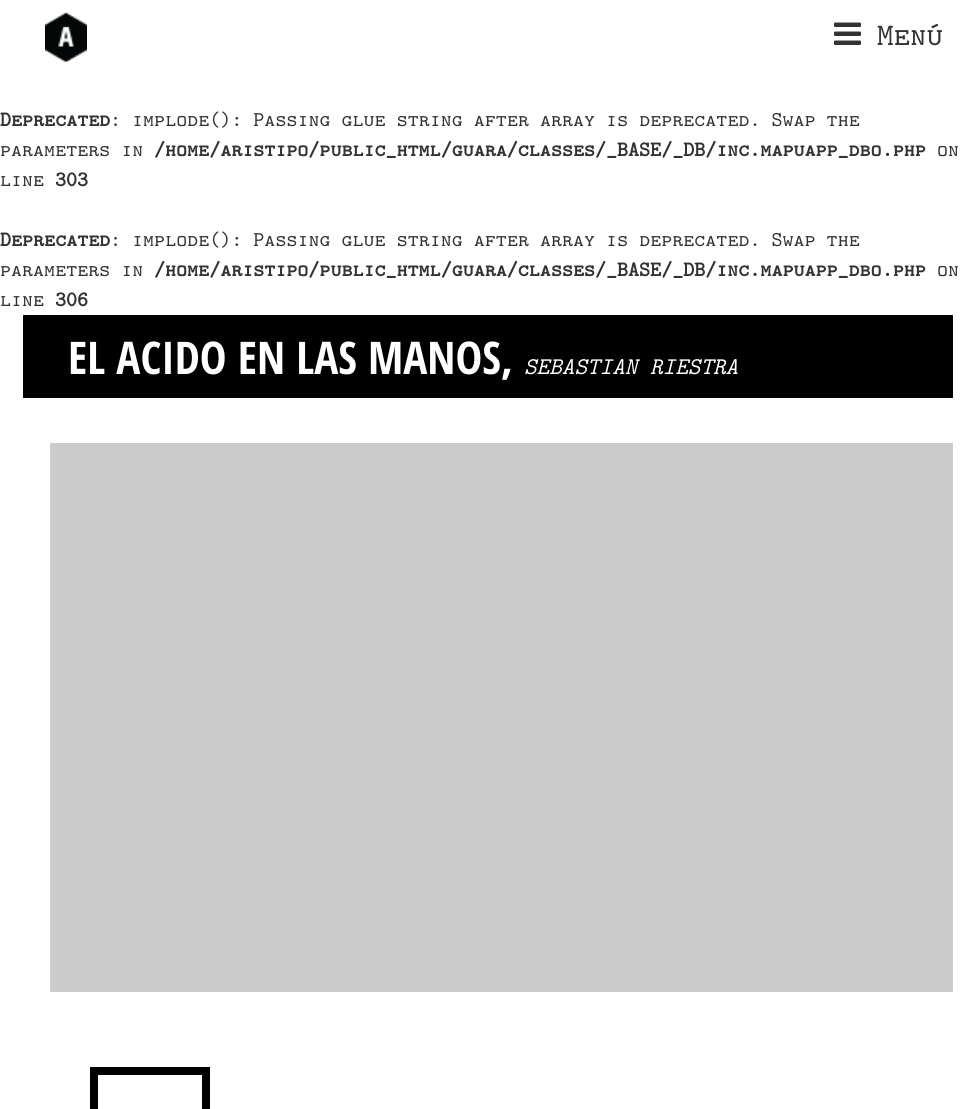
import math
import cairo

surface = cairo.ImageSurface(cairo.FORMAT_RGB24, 975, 1109)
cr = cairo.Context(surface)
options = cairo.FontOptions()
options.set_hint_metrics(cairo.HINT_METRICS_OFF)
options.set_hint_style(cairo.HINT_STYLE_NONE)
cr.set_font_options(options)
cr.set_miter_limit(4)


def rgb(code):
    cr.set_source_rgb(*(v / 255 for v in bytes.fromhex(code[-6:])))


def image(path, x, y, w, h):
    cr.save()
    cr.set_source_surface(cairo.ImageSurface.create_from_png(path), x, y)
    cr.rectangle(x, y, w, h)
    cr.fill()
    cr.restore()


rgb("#ffffff")
cr.paint()
image("img/1.png", 45, 12, 42, 50)
image("img/2.png", 834, 22, 27, 23)
rgb("#000000")
cr.rectangle(23, 315, 930, 83)
cr.fill()
rgb("#cccccc")
cr.rectangle(50, 443, 903, 549)
cr.fill()
cr.rectangle(94, 1071, 112, 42)
rgb("#000000")
cr.set_line_width(8)
cr.stroke()
cr.select_font_face("Latin Modern Mono Caps")
cr.set_font_size(31.5)
rgb("#333333")
cr.move_to(877, 45)
cr.show_text("Menú")
cr.select_font_face("Latin Modern Mono Caps", cairo.FONT_SLANT_NORMAL, cairo.FONT_WEIGHT_BOLD)
cr.set_font_size(21)
cr.move_to(0, 126)
cr.show_text("Deprecated")
cr.select_font_face("Latin Modern Mono Caps")
cr.move_to(110, 126)
cr.show_text(": implode(): Passing glue string after array is deprecated. Swap the")
cr.move_to(0, 156)
cr.show_text("parameters in")
cr.select_font_face("Latin Modern Mono Caps", cairo.FONT_SLANT_NORMAL, cairo.FONT_WEIGHT_BOLD)
cr.move_to(154, 156)
cr.show_text("/home/aristipo/public_html/guara/classes/_BASE/_DB/inc.mapuapp_dbo.php")
cr.select_font_face("Latin Modern Mono Caps")
cr.move_to(937, 156)
cr.show_text("on")
cr.move_to(0, 186)
cr.show_text("line")
cr.select_font_face("Latin Modern Mono Caps", cairo.FONT_SLANT_NORMAL, cairo.FONT_WEIGHT_BOLD)
cr.move_to(55, 186)
cr.show_text("303")
cr.move_to(0, 246)
cr.show_text("Deprecated")
cr.select_font_face("Latin Modern Mono Caps")
cr.move_to(110, 246)
cr.show_text(": implode(): Passing glue string after array is deprecated. Swap the")
cr.move_to(0, 276)
cr.show_text("parameters in")
cr.select_font_face("Latin Modern Mono Caps", cairo.FONT_SLANT_NORMAL, cairo.FONT_WEIGHT_BOLD)
cr.move_to(154, 276)
cr.show_text("/home/aristipo/public_html/guara/classes/_BASE/_DB/inc.mapuapp_dbo.php")
cr.select_font_face("Latin Modern Mono Caps")
cr.move_to(937, 276)
cr.show_text("on")
cr.move_to(0, 306)
cr.show_text("line")
cr.select_font_face("Latin Modern Mono Caps", cairo.FONT_SLANT_NORMAL, cairo.FONT_WEIGHT_BOLD)
cr.move_to(55, 306)
cr.show_text("306")
cr.select_font_face("Open Sans Condensed", cairo.FONT_SLANT_NORMAL, cairo.FONT_WEIGHT_BOLD)
cr.set_font_size(45)
rgb("#ffffff")
cr.move_to(68, 374)
cr.show_text("EL ACIDO EN LAS MANOS,")
cr.select_font_face("Latin Modern Mono", cairo.FONT_SLANT_ITALIC)
cr.set_font_size(24)
cr.move_to(524, 374)
cr.show_text("SEBASTIAN RIESTRA")
surface.write_to_png("page.png")
